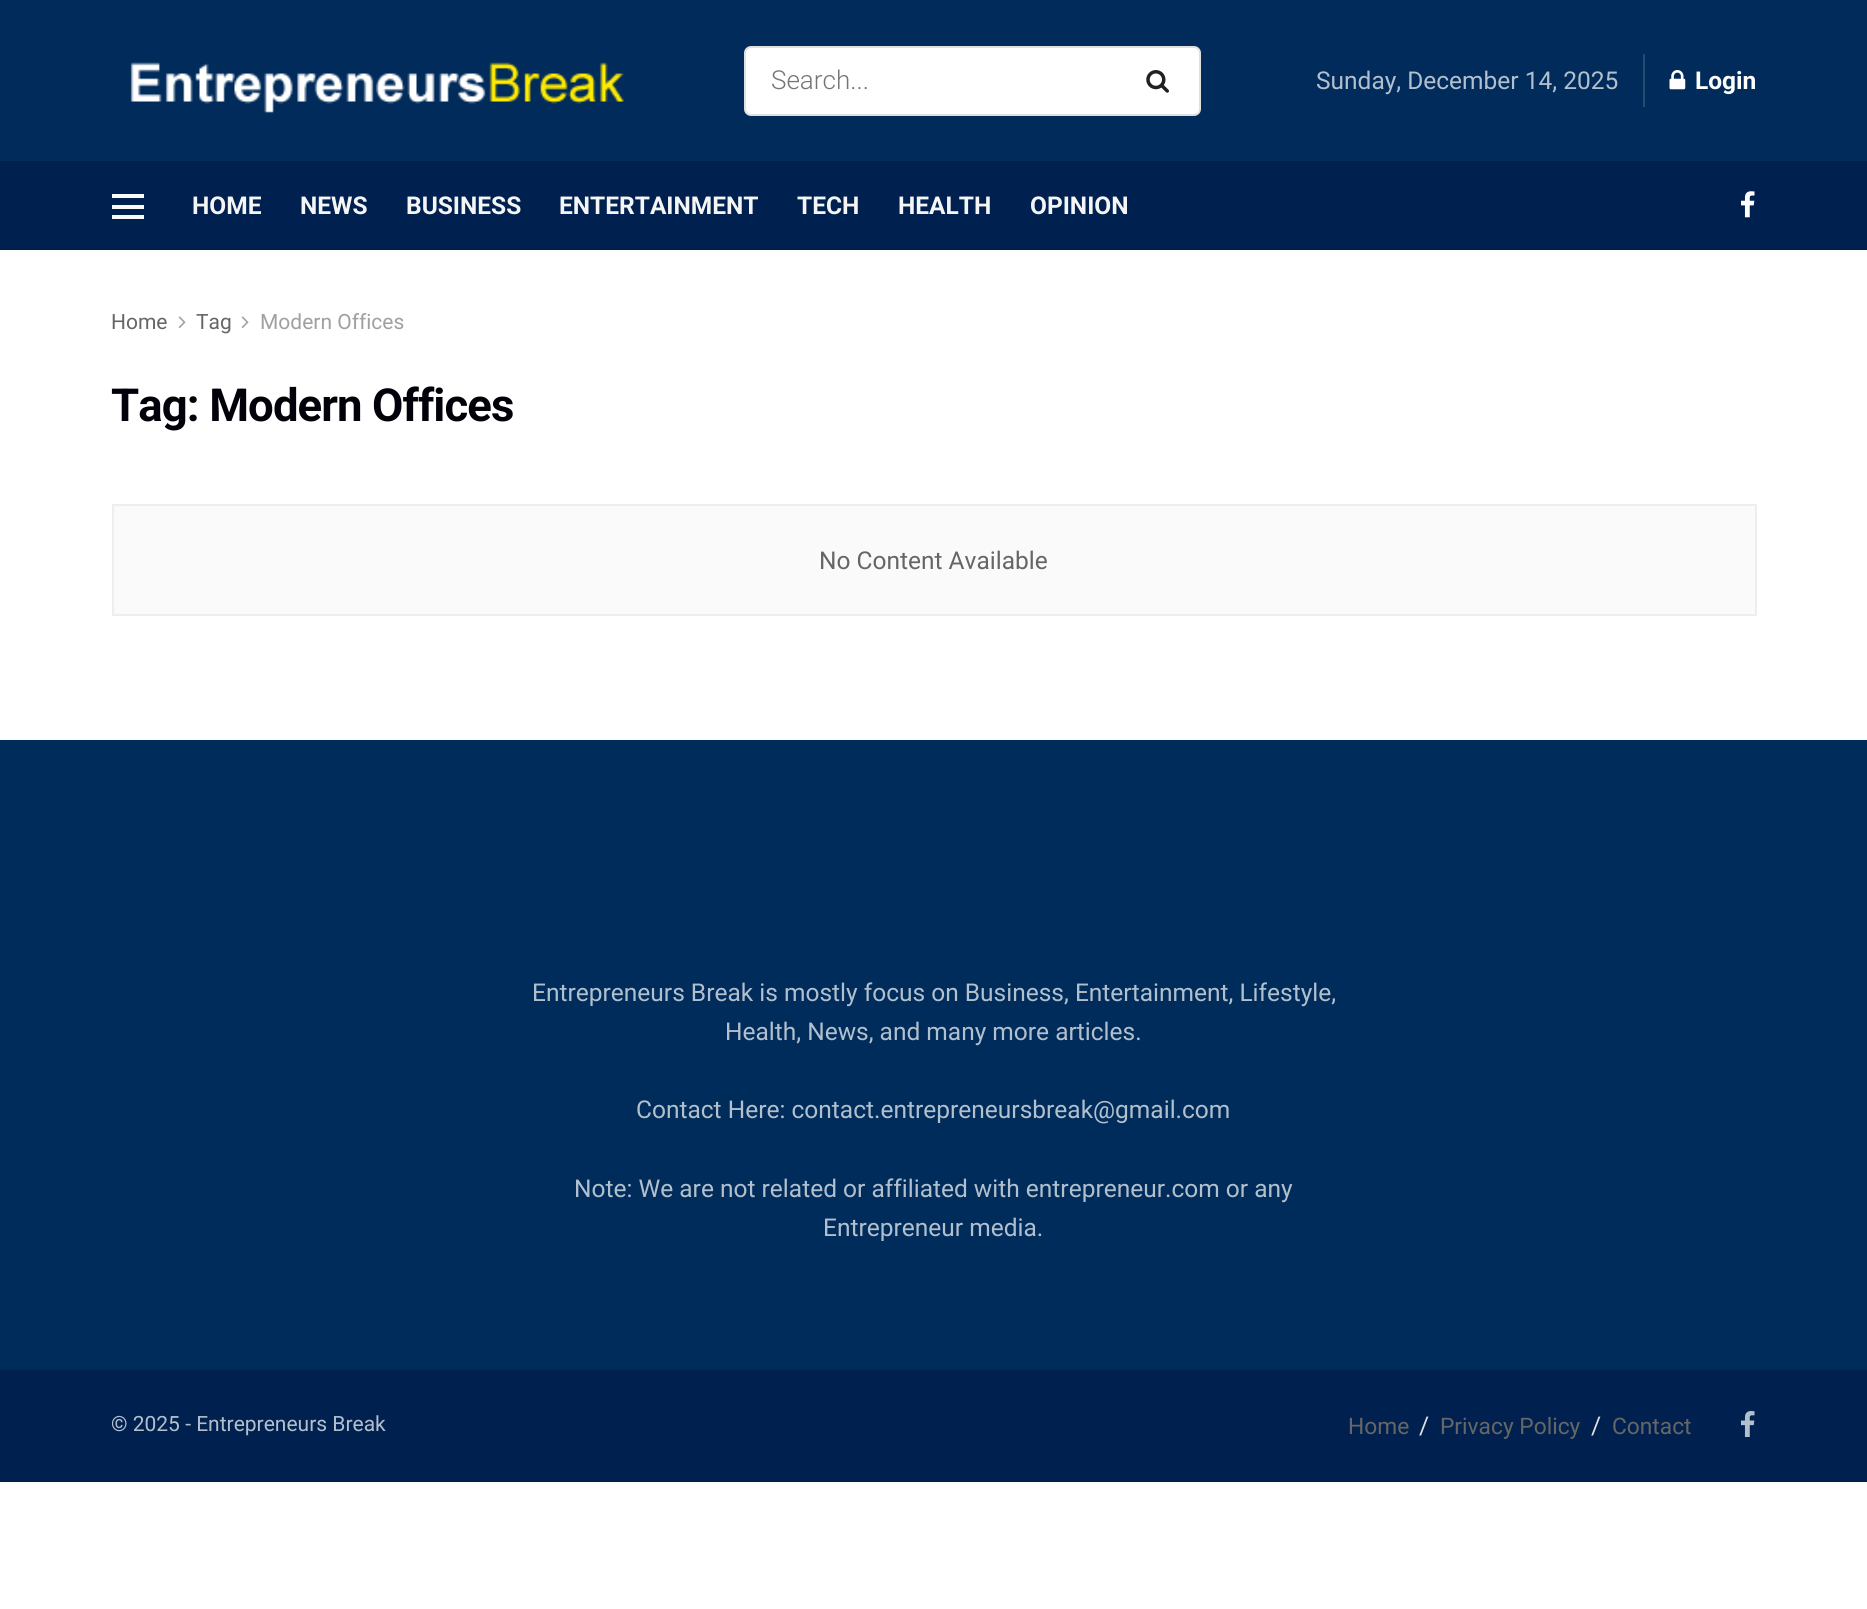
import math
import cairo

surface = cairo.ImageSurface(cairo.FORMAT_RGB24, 1867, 1609)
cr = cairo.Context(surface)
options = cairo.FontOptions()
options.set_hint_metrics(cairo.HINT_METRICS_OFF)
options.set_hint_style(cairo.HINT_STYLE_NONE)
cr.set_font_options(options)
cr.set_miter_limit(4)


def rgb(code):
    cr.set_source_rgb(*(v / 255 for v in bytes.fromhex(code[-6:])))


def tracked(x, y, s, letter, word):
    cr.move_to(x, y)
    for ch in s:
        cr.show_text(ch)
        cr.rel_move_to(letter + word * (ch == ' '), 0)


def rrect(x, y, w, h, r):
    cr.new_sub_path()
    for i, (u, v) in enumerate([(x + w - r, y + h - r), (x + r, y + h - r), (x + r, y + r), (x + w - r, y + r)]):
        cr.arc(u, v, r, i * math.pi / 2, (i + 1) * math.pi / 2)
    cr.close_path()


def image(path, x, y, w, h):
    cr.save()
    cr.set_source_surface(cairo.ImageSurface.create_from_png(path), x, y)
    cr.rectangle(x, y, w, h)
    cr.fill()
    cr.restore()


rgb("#ffffff")
cr.paint()
rgb("#002b5a")
cr.rectangle(0, 0, 1867, 161)
cr.fill()
image("img/1.png", 130, 62, 495, 51)
rgb("#ffffff")
rrect(745, 47, 455, 68, 6)
cr.fill_preserve()
rgb("#e0e0e0")
cr.stroke()
image("img/2.png", 1146, 70, 23, 23)
rgb("#264b73")
cr.rectangle(1643, 54, 2, 53)
cr.fill()
image("img/3.png", 1669, 70, 17, 20)
for x, y, w, h, color in [
    (0, 161, 1867, 89, "#00214f"),
    (112, 194, 32, 4, "#fafafa"),
    (112, 205, 32, 4, "#fafafa"),
    (112, 215, 32, 4, "#fafafa"),
]:
    rgb(color)
    cr.rectangle(x, y, w, h)
    cr.fill()
image("img/4.png", 1741, 191, 14, 27)
image("img/5.png", 178, 316, 8, 12)
image("img/5.png", 241, 316, 8, 12)
cr.rectangle(113, 505, 1643, 110)
cr.fill_preserve()
rgb("#eeeeee")
cr.stroke()
rgb("#002c5b")
cr.rectangle(0, 740, 1867, 630)
cr.fill()
rgb("#00214f")
cr.rectangle(0, 1370, 1867, 112)
cr.fill()
image("img/6.png", 1741, 1411, 14, 26)
cr.select_font_face("Roboto Light")
cr.set_font_size(26)
rgb("#757575")
cr.move_to(771, 89)
cr.show_text("Search...")
cr.select_font_face("Roboto")
cr.set_font_size(24.5)
rgb("#b2c0cd")
cr.move_to(1316, 89)
cr.show_text("Sunday, December 14, 2025")
cr.select_font_face("Roboto", cairo.FONT_SLANT_NORMAL, cairo.FONT_WEIGHT_BOLD)
rgb("#ffffff")
cr.move_to(1695, 89)
cr.show_text("Login")
rgb("#f5f5f5")
for x, y, s in [
    (192, 214, "HOME"),
    (300, 214, "NEWS"),
    (406, 214, "BUSINESS"),
    (559, 214, "ENTERTAINMENT"),
    (797, 214, "TECH"),
    (898, 214, "HEALTH"),
    (1030, 214, "OPINION"),
]:
    cr.move_to(x, y)
    cr.show_text(s)
cr.select_font_face("Roboto")
cr.set_font_size(21)
rgb("#666666")
cr.move_to(111, 329)
cr.show_text("Home")
cr.move_to(196, 329)
cr.show_text("Tag")
rgb("#a0a0a0")
cr.move_to(260, 329)
cr.show_text("Modern Offices")
cr.select_font_face("Roboto", cairo.FONT_SLANT_NORMAL, cairo.FONT_WEIGHT_BOLD)
cr.set_font_size(45.5)
rgb("#02010a")
tracked(111, 421, "Tag: Modern Offices", -0.9, 0)
cr.select_font_face("Roboto")
cr.set_font_size(24.5)
rgb("#666666")
cr.move_to(819, 569)
cr.show_text("No Content Available")
rgb("#b2c0cd")
for x, y, s in [
    (532, 1001, "Entrepreneurs Break is mostly focus on Business, Entertainment, Lifestyle,"),
    (725, 1040, "Health, News, and many more articles."),
    (636, 1118, "Contact Here: contact.entrepreneursbreak@gmail.com"),
    (574, 1197, "Note: We are not related or affiliated with entrepreneur.com or any"),
    (823, 1236, "Entrepreneur media."),
]:
    cr.move_to(x, y)
    cr.show_text(s)
cr.set_font_size(21)
cr.move_to(111, 1431)
cr.show_text("© 2025 - Entrepreneurs Break")
cr.set_font_size(22.75)
rgb("#666666")
cr.move_to(1348, 1434)
cr.show_text("Home")
cr.set_font_size(24.5)
rgb("#e0e0e0")
cr.move_to(1419, 1434)
cr.show_text("/")
cr.set_font_size(22.75)
rgb("#666666")
cr.move_to(1440, 1434)
cr.show_text("Privacy Policy")
cr.set_font_size(24.5)
rgb("#e0e0e0")
cr.move_to(1591, 1434)
cr.show_text("/")
cr.set_font_size(22.75)
rgb("#666666")
cr.move_to(1612, 1434)
cr.show_text("Contact")
surface.write_to_png("page.png")
